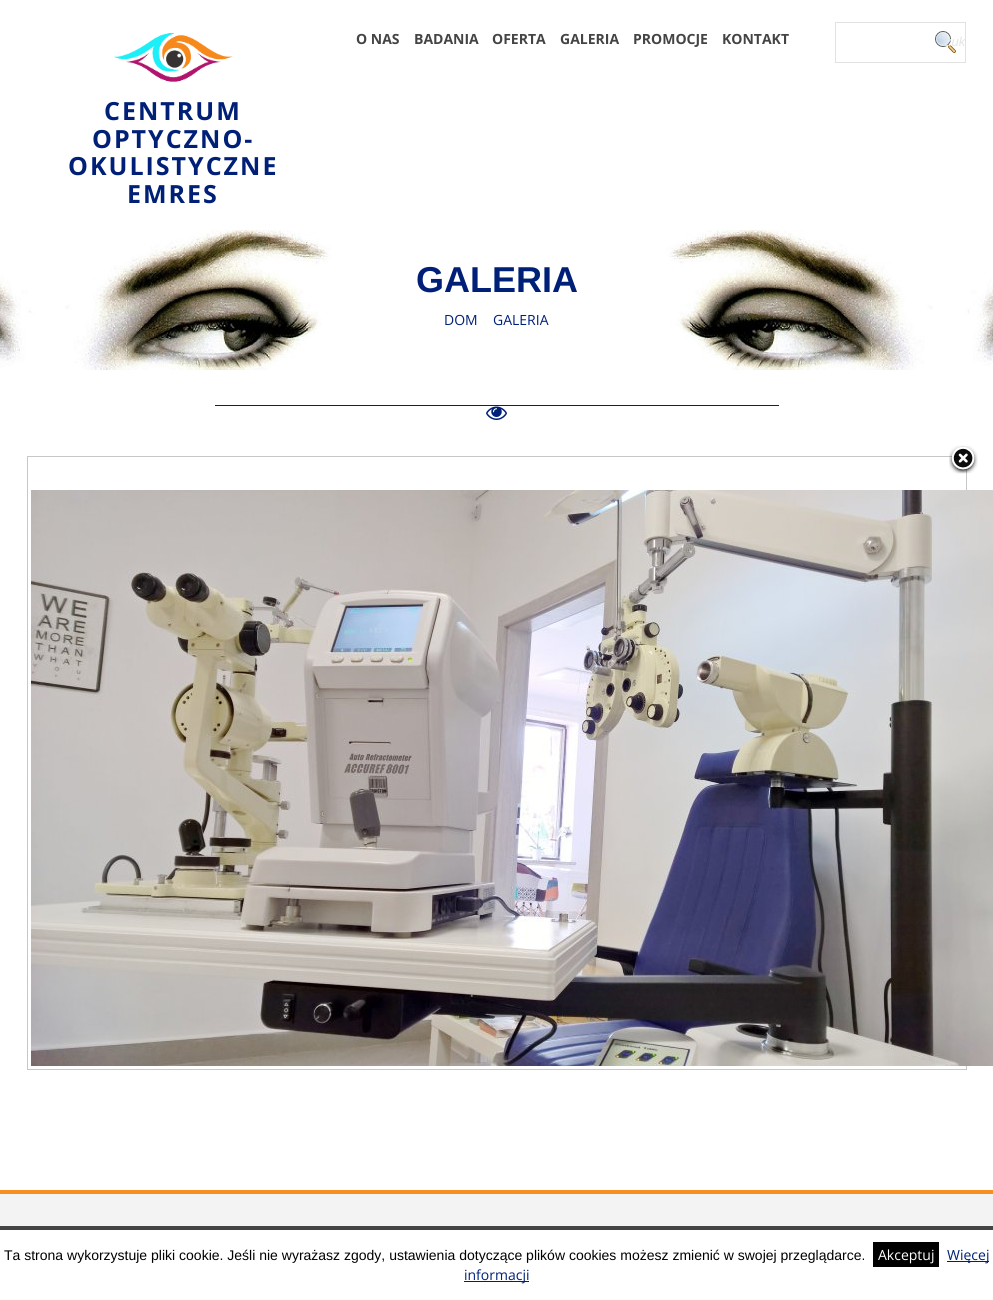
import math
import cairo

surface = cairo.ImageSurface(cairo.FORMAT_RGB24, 993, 1300)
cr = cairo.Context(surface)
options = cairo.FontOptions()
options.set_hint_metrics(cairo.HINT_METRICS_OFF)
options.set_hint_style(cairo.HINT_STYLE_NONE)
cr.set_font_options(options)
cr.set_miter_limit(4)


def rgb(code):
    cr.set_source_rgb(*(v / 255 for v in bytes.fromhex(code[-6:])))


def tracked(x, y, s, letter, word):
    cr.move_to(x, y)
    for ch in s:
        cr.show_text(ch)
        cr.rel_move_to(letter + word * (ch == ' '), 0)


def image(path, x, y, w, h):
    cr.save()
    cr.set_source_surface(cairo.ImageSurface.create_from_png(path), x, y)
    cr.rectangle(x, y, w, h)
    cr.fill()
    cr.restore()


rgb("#ffffff")
cr.paint()
cr.rectangle(835.5, 22.5, 130, 40)
rgb("#e2e2e2")
cr.set_line_width(1)
cr.stroke()
image("img/1.png", 935, 31, 21, 22)
image("img/2.png", 114, 32, 119, 51)
image("img/3.png", 0, 230, 993, 140)
rgb("#002077")
cr.rectangle(215, 405, 564, 1)
cr.fill()
image("img/4.png", 486, 406, 21, 14)
cr.rectangle(27.5, 456.5, 939, 613)
rgb("#c7c7c7")
cr.stroke()
image("img/5.png", 949, 445, 29, 29)
image("img/6.png", 31, 490, 962, 576)
for x, y, w, h, color in [
    (0, 1194, 993, 32, "#f3f3f3"),
    (0, 1190, 993, 4, "#f78e21"),
    (0, 1226, 993, 4, "#444444"),
    (873, 1242, 66, 25, "#000000"),
    (947, 1261, 42, 1, "#002077"),
    (464, 1281, 65, 1, "#002077"),
]:
    rgb(color)
    cr.rectangle(x, y, w, h)
    cr.fill()
cr.select_font_face("Open Sans", cairo.FONT_SLANT_NORMAL, cairo.FONT_WEIGHT_BOLD)
cr.set_font_size(14)
rgb("#444444")
for x, y, s in [
    (356, 44, "O NAS"),
    (414, 44, "BADANIA"),
    (492, 44, "OFERTA"),
    (560, 44, "GALERIA"),
    (633, 44, "PROMOCJE"),
    (722, 44, "KONTAKT"),
]:
    cr.move_to(x, y)
    cr.show_text(s)
cr.select_font_face("Liberation Sans", cairo.FONT_SLANT_ITALIC)
cr.set_font_size(13)
rgb("#e2e6e8")
cr.move_to(945, 46)
cr.show_text("zuk")
cr.select_font_face("Open Sans", cairo.FONT_SLANT_NORMAL, cairo.FONT_WEIGHT_BOLD)
cr.set_font_size(25)
rgb("#002077")
for x, y, s in [
    (104, 120, "CENTRUM"),
    (92, 148, "OPTYCZNO-"),
    (68, 175, "OKULISTYCZNE"),
    (127, 203, "EMRES"),
]:
    tracked(x, y, s, 2, 0)
cr.select_font_face("Liberation Sans", cairo.FONT_SLANT_NORMAL, cairo.FONT_WEIGHT_BOLD)
cr.set_font_size(36)
cr.move_to(416, 292)
cr.show_text("GALERIA")
cr.select_font_face("Open Sans")
cr.set_font_size(14)
cr.move_to(444, 325)
cr.show_text("DOM")
cr.move_to(493, 325)
cr.show_text("GALERIA")
cr.select_font_face("Liberation Sans")
rgb("#000000")
cr.move_to(4, 1260)
cr.show_text("Ta strona wykorzystuje pliki cookie. Jeśli nie wyrażasz zgody, ustawienia dotyczące plików cookies możesz zmienić w swojej przeglądarce.")
cr.select_font_face("Open Sans")
rgb("#ffffff")
cr.move_to(878, 1260)
cr.show_text("Akceptuj")
rgb("#002077")
cr.move_to(947, 1260)
cr.show_text("Więcej")
cr.move_to(464, 1280)
cr.show_text("informacji")
surface.write_to_png("page.png")
